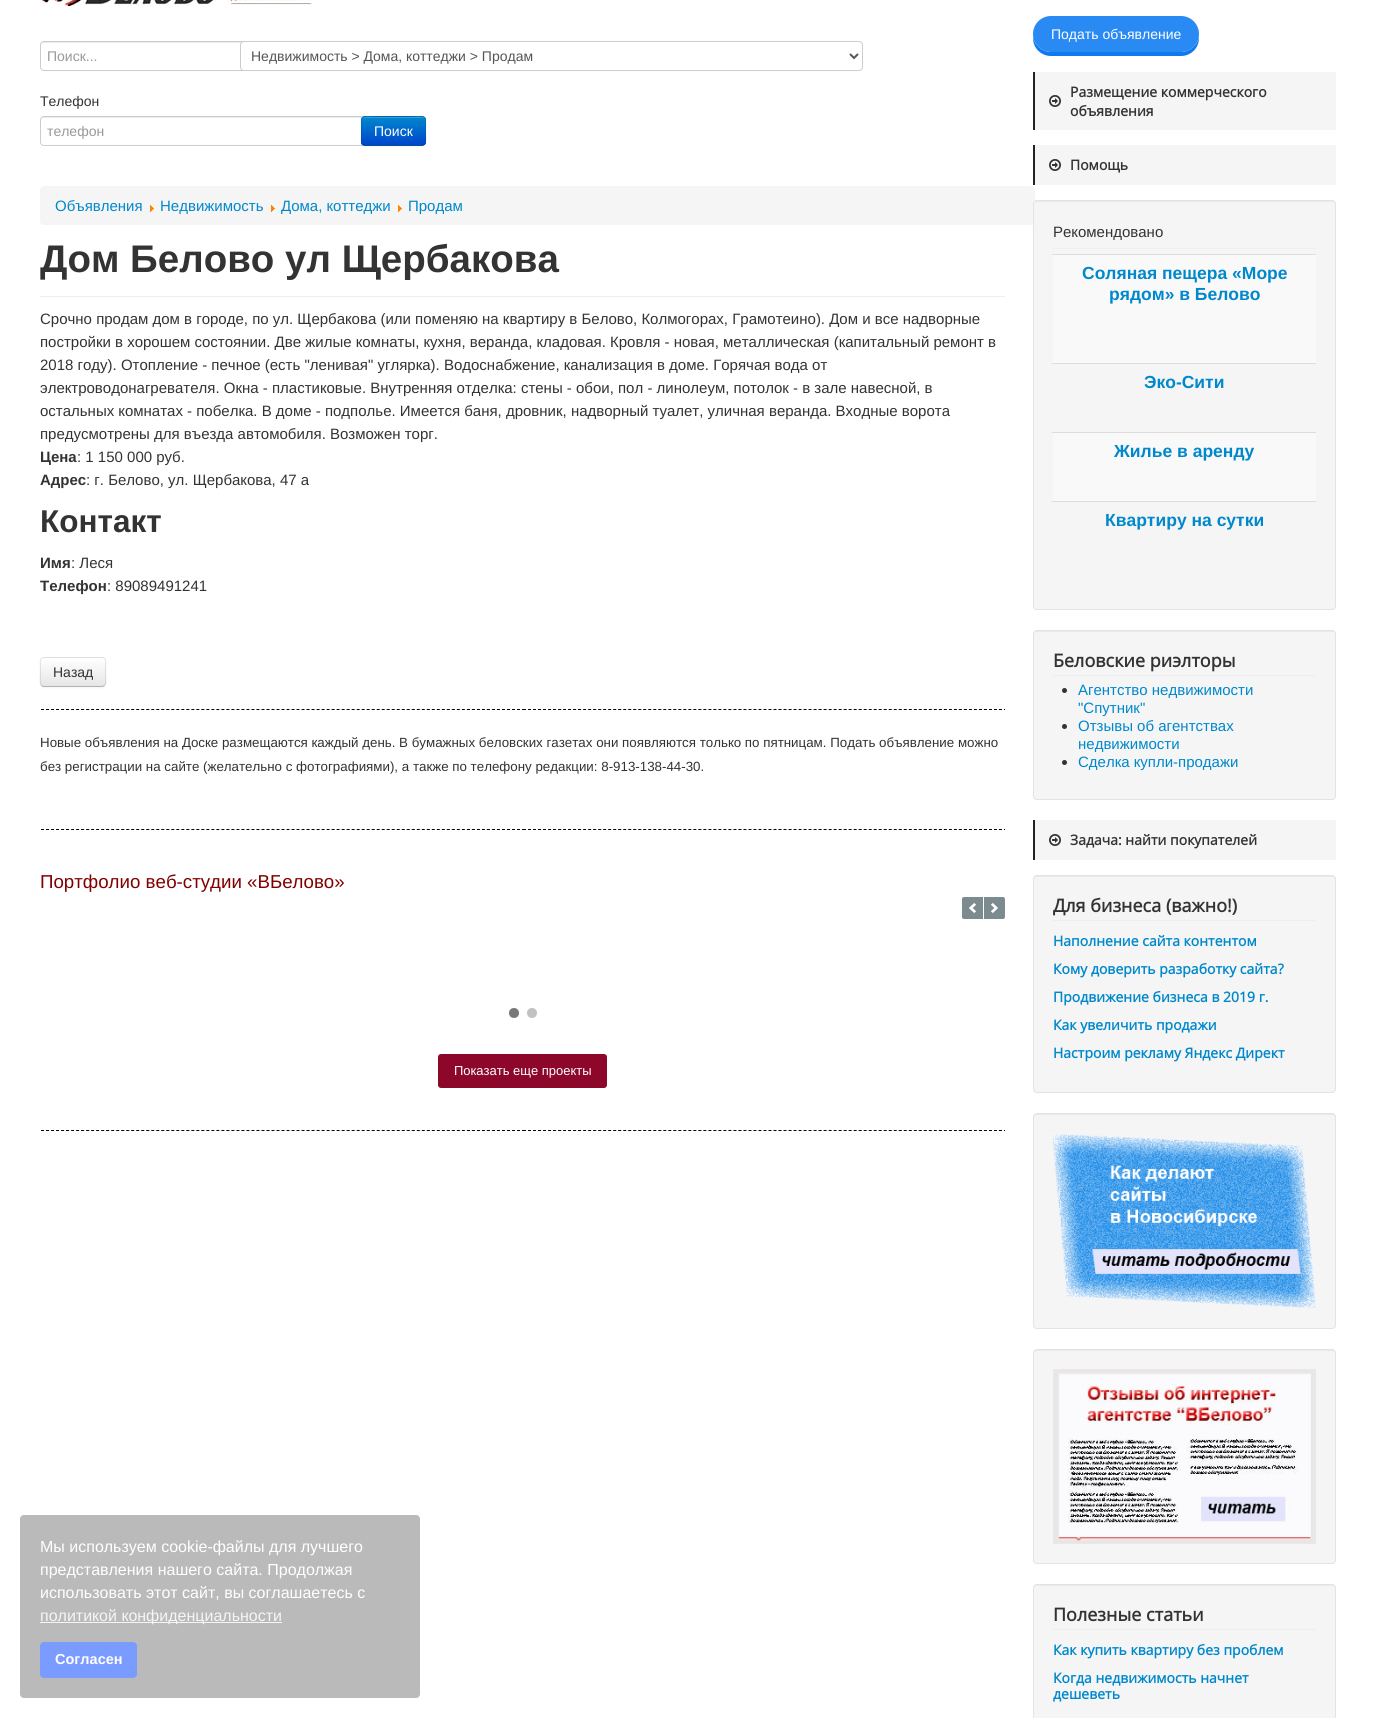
import math
import cairo

surface = cairo.ImageSurface(cairo.FORMAT_RGB24, 1376, 1718)
cr = cairo.Context(surface)
options = cairo.FontOptions()
options.set_hint_metrics(cairo.HINT_METRICS_OFF)
options.set_hint_style(cairo.HINT_STYLE_NONE)
cr.set_font_options(options)
cr.set_miter_limit(4)


def rgb(code):
    cr.set_source_rgb(*(v / 255 for v in bytes.fromhex(code[-6:])))


def rrect(x, y, w, h, r):
    cr.new_sub_path()
    for i, (u, v) in enumerate([(x + w - r, y + h - r), (x + r, y + h - r), (x + r, y + r), (x + w - r, y + r)]):
        cr.arc(u, v, r, i * math.pi / 2, (i + 1) * math.pi / 2)
    cr.close_path()


def soft_shadow(x, y, w, h, r, blur, alpha):
    cr.push_group_with_content(cairo.CONTENT_ALPHA)
    cr.set_operator(cairo.OPERATOR_SOURCE)
    for i in range(15, -16, -2):
        e = blur * i / 6
        if min(w, h) + 2 * e > 0:
            cr.set_source_rgba(0, 0, 0, alpha * math.erfc((i - 1) / 8.5) / 2)
            rrect(x - e, y - e, w + 2 * e, h + 2 * e, max(0, min(r + e + blur * .6, min(w, h) / 2 + e)))
            cr.fill()
    cr.mask(cr.pop_group())


def image(path, x, y, w, h):
    cr.save()
    cr.set_source_surface(cairo.ImageSurface.create_from_png(path), x, y)
    cr.rectangle(x, y, w, h)
    cr.fill()
    cr.restore()


rgb("#ffffff")
cr.paint()
image("img/1.png", 40, 0, 272, 6)
rgb("#ececec")
cr.new_path()
cr.move_to(44, 43)
cr.line_to(245, 43)
cr.curve_to(247, 43, 248, 44, 248, 46)
cr.curve_to(248, 44, 247, 42, 245, 42)
cr.line_to(43, 42)
cr.curve_to(41, 43, 41, 44, 41, 46)
cr.curve_to(41, 44, 42, 43, 44, 43)
cr.close_path()
cr.fill()
rrect(40.5, 41.5, 208, 29, 3.5)
rgb("#cccccc")
cr.set_line_width(1)
cr.stroke()
rgb("#ffffff")
rrect(240.5, 41.5, 622, 29, 3.5)
cr.fill_preserve()
rgb("#cccccc")
cr.stroke()
cr.new_path()
cr.move_to(850, 54)
cr.line_to(854, 58)
cr.line_to(858, 54)
rgb("#555555")
cr.set_line_width(2)
cr.stroke()
rgb("#ececec")
cr.new_path()
cr.move_to(44, 118)
cr.line_to(366, 118)
cr.curve_to(368, 118, 369, 119, 369, 121)
cr.curve_to(369, 119, 368, 117, 366, 117)
cr.line_to(44, 117)
cr.curve_to(42, 117, 41, 119, 41, 121)
cr.curve_to(41, 119, 42, 118, 44, 118)
cr.close_path()
cr.fill()
rrect(40.5, 116.5, 329, 29, 3.5)
rgb("#cccccc")
cr.set_line_width(1)
cr.stroke()
rgb("#000000")
soft_shadow(361, 117, 65, 30, 4, 1, 0.05)
rgb("#006dcc")
rrect(361, 116, 65, 30, 4)
cr.fill()
cr.save()
rrect(361, 116, 65, 30, 4)
cr.clip()
gradient = cairo.LinearGradient(394, 117, 394, 145)
gradient.add_color_stop_rgba(0, 0, 0.533, 0.8, 1)
gradient.add_color_stop_rgba(1, 0, 0.267, 0.8, 1)
cr.set_source(gradient)
cr.rectangle(361, 117, 65, 28)
cr.fill()
cr.restore()
rgb("#339fd6")
cr.new_path()
cr.move_to(365, 118)
cr.line_to(422, 118)
cr.curve_to(424, 118, 425, 119, 425, 121)
cr.curve_to(425, 115, 417, 117, 412, 117)
cr.line_to(374, 117)
cr.curve_to(370, 117, 362, 115, 362, 121)
cr.curve_to(362, 119, 363, 118, 365, 118)
cr.close_path()
cr.fill()
cr.new_path()
cr.move_to(424.5, 144.5)
cr.line_to(422.5, 145.5)
cr.line_to(364.5, 145.5)
cr.line_to(362.5, 144.5)
cr.set_source_rgba(0, 0, 0, 0.25)
cr.stroke()
cr.new_path()
cr.move_to(362.5, 144.5)
cr.curve_to(360.5, 142.5, 361.5, 134, 361.5, 131)
cr.curve_to(361.5, 115.5, 359, 116.5, 374.5, 116.5)
cr.line_to(412.5, 116.5)
cr.curve_to(428, 116.5, 425.5, 115.5, 425.5, 131)
cr.curve_to(425.5, 134, 426.5, 142.5, 424.5, 144.5)
cr.set_source_rgba(0, 0, 0, 0.1)
cr.stroke()
rgb("#f5f5f5")
rrect(40, 186, 995, 39, 4)
cr.fill()
image("img/2.png", 150, 205, 4, 7)
image("img/2.png", 271, 205, 4, 7)
image("img/2.png", 398, 205, 4, 7)
rgb("#eeeeee")
cr.rectangle(40, 296, 965, 1)
cr.fill()
rgb("#000000")
soft_shadow(40, 658, 66, 30, 4, 1, 0.05)
rgb("#f5f5f5")
rrect(40, 657, 66, 30, 4)
cr.fill()
cr.save()
rrect(40, 657, 66, 30, 4)
cr.clip()
gradient = cairo.LinearGradient(73, 658, 73, 686)
gradient.add_color_stop_rgba(0, 1, 1, 1, 1)
gradient.add_color_stop_rgba(1, 0.902, 0.902, 0.902, 1)
cr.set_source(gradient)
cr.rectangle(40, 658, 66, 28)
cr.fill()
cr.restore()
rgb("#ffffff")
cr.new_path()
cr.move_to(44, 659)
cr.line_to(102, 659)
cr.curve_to(104, 659, 105, 660, 105, 662)
cr.curve_to(105, 656, 97, 658, 92, 658)
cr.line_to(54, 658)
cr.curve_to(49, 658, 41, 656, 41, 662)
cr.curve_to(41, 660, 42, 659, 44, 659)
cr.close_path()
cr.fill()
cr.new_path()
cr.move_to(104.5, 685.5)
cr.line_to(102.5, 686.5)
cr.line_to(43.5, 686.5)
cr.line_to(41.5, 685.5)
rgb("#b3b3b3")
cr.stroke()
cr.new_path()
cr.move_to(41.5, 685.5)
cr.curve_to(39.5, 683.5, 40.5, 675, 40.5, 672)
cr.curve_to(40.5, 656, 38, 657.5, 53.5, 657.5)
cr.line_to(92.5, 657.5)
cr.curve_to(108, 657.5, 105.5, 656, 105.5, 672)
cr.curve_to(105.5, 675, 106.5, 683.5, 104.5, 685.5)
cr.set_source_rgba(0, 0, 0, 0.1)
cr.stroke()
cr.save()
cr.rectangle(40, 697, 965, 23)
cr.clip()
cr.new_path()
cr.move_to(-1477, 709.5)
cr.line_to(523, 709.5)
rgb("#050505")
cr.set_dash([3, 2.01])
cr.stroke()
cr.new_path()
cr.move_to(523, 709.5)
cr.line_to(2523, 709.5)
cr.stroke()
cr.restore()
cr.save()
cr.rectangle(40, 817, 965, 23)
cr.clip()
cr.new_path()
cr.move_to(-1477, 829.5)
cr.line_to(523, 829.5)
rgb("#050505")
cr.set_dash([3, 2.01])
cr.stroke()
cr.new_path()
cr.move_to(523, 829.5)
cr.line_to(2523, 829.5)
cr.stroke()
cr.restore()
rgb("#7c8b90")
cr.new_path()
cr.move_to(964, 897)
cr.line_to(983, 897)
cr.line_to(983, 919)
cr.line_to(964, 919)
cr.curve_to(963, 919, 962, 918, 962, 917)
cr.line_to(962, 899)
cr.curve_to(962, 898, 963, 897, 964, 897)
cr.close_path()
cr.fill()
image("img/3.png", 969, 903, 7, 10)
cr.new_path()
cr.move_to(984, 897)
cr.line_to(1003, 897)
cr.curve_to(1004, 897, 1005, 898, 1005, 899)
cr.line_to(1005, 917)
cr.curve_to(1005, 918, 1004, 919, 1003, 919)
cr.line_to(984, 919)
cr.close_path()
cr.fill()
image("img/4.png", 991, 903, 7, 10)
rgb("#797979")
cr.arc(514, 1013, 5, 0, 2 * math.pi)
cr.fill()
rgb("#c2c2c2")
cr.arc(532, 1013, 5, 0, 2 * math.pi)
cr.fill()
rgb("#8d072b")
rrect(438, 1054, 169, 34, 3)
cr.fill()
cr.save()
cr.rectangle(40, 1118, 965, 23)
cr.clip()
cr.new_path()
cr.move_to(-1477, 1130.5)
cr.line_to(523, 1130.5)
rgb("#050505")
cr.set_dash([3, 2.01])
cr.stroke()
cr.new_path()
cr.move_to(523, 1130.5)
cr.line_to(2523, 1130.5)
cr.stroke()
cr.restore()
rgb("#0d7af2")
cr.new_path()
cr.move_to(1033, 36)
cr.line_to(1033, 38)
cr.curve_to(1033, 48, 1041, 56, 1051, 56)
cr.line_to(1181, 56)
cr.curve_to(1191, 56, 1199, 48, 1199, 38)
cr.line_to(1199, 36)
cr.curve_to(1198, 45, 1190, 52, 1181, 52)
cr.line_to(1051, 52)
cr.curve_to(1042, 52, 1034, 45, 1033, 36)
cr.close_path()
cr.fill()
rgb("#2a8af4")
rrect(1033, 16, 166, 36, 18)
cr.fill()
rgb("#f5f5f5")
cr.rectangle(1035, 72, 301, 58)
cr.fill()
rgb("#222222")
cr.rectangle(1033, 72, 2, 58)
cr.fill()
image("img/5.png", 1049, 95, 12, 12)
rgb("#f5f5f5")
cr.rectangle(1035, 145, 301, 40)
cr.fill()
rgb("#222222")
cr.rectangle(1033, 145, 2, 40)
cr.fill()
image("img/5.png", 1049, 159, 12, 12)
rgb("#f5f5f5")
rrect(1033, 200, 303, 410, 4)
cr.fill()
rgb("#e9e9e9")
cr.new_path()
cr.move_to(1037, 202)
cr.line_to(1332, 202)
cr.curve_to(1334, 202, 1335, 203, 1335, 205)
cr.line_to(1334, 202)
cr.line_to(1333, 201)
cr.line_to(1037, 201)
cr.curve_to(1035, 201, 1034, 203, 1034, 205)
cr.curve_to(1034, 203, 1035, 202, 1037, 202)
cr.close_path()
cr.fill()
rrect(1033.5, 200.5, 302, 409, 3.5)
rgb("#e3e3e3")
cr.stroke()
for x, y, w, h, color in [
    (1053, 248, 263, 1, "#eeeeee"),
    (1053, 255, 263, 108, "#f9f9f9"),
    (1052, 254, 264, 1, "#dddddd"),
    (1052, 363, 264, 1, "#dddddd"),
    (1053, 433, 263, 68, "#f9f9f9"),
    (1052, 432, 264, 1, "#dddddd"),
    (1052, 501, 264, 1, "#dddddd"),
]:
    rgb(color)
    cr.rectangle(x, y, w, h)
    cr.fill()
rgb("#f5f5f5")
rrect(1033, 630, 303, 170, 4)
cr.fill()
rgb("#e9e9e9")
cr.new_path()
cr.move_to(1037, 632)
cr.line_to(1332, 632)
cr.curve_to(1334, 632, 1335, 633, 1335, 635)
cr.line_to(1334, 632)
cr.line_to(1333, 631)
cr.line_to(1037, 631)
cr.curve_to(1035, 631, 1034, 633, 1034, 635)
cr.curve_to(1034, 633, 1035, 632, 1037, 632)
cr.close_path()
cr.fill()
rrect(1033.5, 630.5, 302, 169, 3.5)
rgb("#e3e3e3")
cr.stroke()
rgb("#eeeeee")
cr.rectangle(1053, 675, 263, 1)
cr.fill()
rgb("#333333")
cr.arc(1064.5, 690.5, 2.5, 0, 2 * math.pi)
cr.fill()
cr.arc(1064.5, 726.5, 2.5, 0, 2 * math.pi)
cr.fill()
cr.arc(1064.5, 762.5, 2.5, 0, 2 * math.pi)
cr.fill()
rgb("#f5f5f5")
cr.rectangle(1035, 820, 301, 40)
cr.fill()
rgb("#222222")
cr.rectangle(1033, 820, 2, 40)
cr.fill()
image("img/5.png", 1049, 834, 12, 12)
rgb("#f5f5f5")
rrect(1033, 875, 303, 218, 4)
cr.fill()
rgb("#e9e9e9")
cr.new_path()
cr.move_to(1037, 877)
cr.line_to(1332, 877)
cr.curve_to(1334, 877, 1335, 878, 1335, 880)
cr.line_to(1334, 877)
cr.line_to(1333, 876)
cr.line_to(1037, 876)
cr.curve_to(1035, 876, 1034, 878, 1034, 880)
cr.curve_to(1034, 878, 1035, 877, 1037, 877)
cr.close_path()
cr.fill()
rrect(1033.5, 875.5, 302, 217, 3.5)
rgb("#e3e3e3")
cr.stroke()
rgb("#eeeeee")
cr.rectangle(1053, 920, 263, 1)
cr.fill()
rgb("#f5f5f5")
rrect(1033, 1113, 303, 216, 4)
cr.fill()
rgb("#e9e9e9")
cr.new_path()
cr.move_to(1037, 1115)
cr.line_to(1332, 1115)
cr.curve_to(1334, 1115, 1335, 1116, 1335, 1118)
cr.line_to(1334, 1115)
cr.line_to(1333, 1114)
cr.line_to(1037, 1114)
cr.curve_to(1035, 1114, 1034, 1116, 1034, 1118)
cr.curve_to(1034, 1116, 1035, 1115, 1037, 1115)
cr.close_path()
cr.fill()
rrect(1033.5, 1113.5, 302, 215, 3.5)
rgb("#e3e3e3")
cr.stroke()
image("img/6.png", 1053, 1134, 263, 175)
rgb("#f5f5f5")
rrect(1033, 1349, 303, 215, 4)
cr.fill()
rgb("#e9e9e9")
cr.new_path()
cr.move_to(1037, 1351)
cr.line_to(1332, 1351)
cr.curve_to(1334, 1351, 1335, 1352, 1335, 1354)
cr.line_to(1334, 1351)
cr.line_to(1333, 1350)
cr.line_to(1037, 1350)
cr.curve_to(1035, 1350, 1034, 1352, 1034, 1354)
cr.curve_to(1034, 1352, 1035, 1351, 1037, 1351)
cr.close_path()
cr.fill()
rrect(1033.5, 1349.5, 302, 214, 3.5)
rgb("#e3e3e3")
cr.stroke()
image("img/7.png", 1053, 1369, 263, 175)
rgb("#f5f5f5")
rrect(1033, 1584, 303, 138, 4)
cr.fill()
rgb("#e9e9e9")
cr.new_path()
cr.move_to(1037, 1586)
cr.line_to(1332, 1586)
cr.curve_to(1334, 1586, 1335, 1587, 1335, 1589)
cr.line_to(1334, 1586)
cr.line_to(1333, 1585)
cr.line_to(1037, 1585)
cr.curve_to(1035, 1585, 1034, 1587, 1034, 1589)
cr.curve_to(1034, 1587, 1035, 1586, 1037, 1586)
cr.close_path()
cr.fill()
rrect(1033.5, 1584.5, 302, 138, 3.5)
rgb("#e3e3e3")
cr.stroke()
rgb("#eeeeee")
cr.rectangle(1053, 1629, 263, 1)
cr.fill()
rgb("#bababa")
rrect(20, 1515, 400, 183, 4)
cr.fill()
rgb("#f5f5f5")
cr.rectangle(40, 1622, 242, 1)
cr.fill()
rgb("#7a9bff")
rrect(40, 1642, 97, 36, 4)
cr.fill()
cr.select_font_face("Liberation Sans")
cr.set_font_size(14)
rgb("#999999")
cr.move_to(47, 61)
cr.show_text("Поиск...")
rgb("#555555")
cr.move_to(251, 61)
cr.show_text("Недвижимость > Дома, коттеджи > Продам")
rgb("#333333")
cr.move_to(40, 106)
cr.show_text("Телефон")
rgb("#999999")
cr.move_to(47, 136)
cr.show_text("телефон")
rgb("#ffffff")
cr.move_to(374, 136)
cr.show_text("Поиск")
cr.set_font_size(15)
rgb("#0088cc")
for x, y, s in [
    (55, 211, "Объявления"),
    (160, 211, "Недвижимость"),
    (281, 211, "Дома, коттеджи"),
    (408, 211, "Продам"),
]:
    cr.move_to(x, y)
    cr.show_text(s)
cr.select_font_face("Liberation Sans", cairo.FONT_SLANT_NORMAL, cairo.FONT_WEIGHT_BOLD)
cr.set_font_size(38.5)
rgb("#333333")
cr.move_to(40, 272)
cr.show_text("Дом Белово ул Щербакова")
cr.select_font_face("Liberation Sans")
cr.set_font_size(15)
for x, y, s in [
    (40, 324, "Срочно продам дом в городе, по ул. Щербакова (или поменяю на квартиру в Белово, Колмогорах, Грамотеино). Дом и все надворные"),
    (40, 347, "постройки в хорошем состоянии. Две жилые комнаты, кухня, веранда, кладовая. Кровля - новая, металлическая (капитальный ремонт в"),
    (40, 370, "2018 году). Отопление - печное (есть \"ленивая\" углярка). Водоснабжение, канализация в доме. Горячая вода от"),
    (40, 393, "электроводонагревателя. Окна - пластиковые. Внутренняя отделка: стены - обои, пол - линолеум, потолок - в зале навесной, в"),
    (40, 416, "остальных комнатах - побелка. В доме - подполье. Имеется баня, дровник, надворный туалет, уличная веранда. Входные ворота"),
    (40, 439, "предусмотрены для въезда автомобиля. Возможен торг."),
]:
    cr.move_to(x, y)
    cr.show_text(s)
cr.select_font_face("Liberation Sans", cairo.FONT_SLANT_NORMAL, cairo.FONT_WEIGHT_BOLD)
cr.move_to(40, 462)
cr.show_text("Цена")
cr.select_font_face("Liberation Sans")
cr.move_to(77, 462)
cr.show_text(": 1 150 000 руб.")
cr.select_font_face("Liberation Sans", cairo.FONT_SLANT_NORMAL, cairo.FONT_WEIGHT_BOLD)
cr.move_to(40, 485)
cr.show_text("Адрес")
cr.select_font_face("Liberation Sans")
cr.move_to(86, 485)
cr.show_text(": г. Белово, ул. Щербакова, 47 а")
cr.select_font_face("Liberation Sans", cairo.FONT_SLANT_NORMAL, cairo.FONT_WEIGHT_BOLD)
cr.set_font_size(31.5)
cr.move_to(40, 532)
cr.show_text("Контакт")
cr.set_font_size(15)
cr.move_to(40, 568)
cr.show_text("Имя")
cr.select_font_face("Liberation Sans")
cr.move_to(71, 568)
cr.show_text(": Леся")
cr.select_font_face("Liberation Sans", cairo.FONT_SLANT_NORMAL, cairo.FONT_WEIGHT_BOLD)
cr.move_to(40, 591)
cr.show_text("Телефон")
cr.select_font_face("Liberation Sans")
cr.move_to(107, 591)
cr.show_text(": 89089491241")
cr.set_font_size(14)
cr.move_to(53, 677)
cr.show_text("Назад")
cr.set_font_size(13.33)
cr.move_to(40, 747)
cr.show_text("Новые объявления на Доске размещаются каждый день. В бумажных беловских газетах они появляются только по пятницам. Подать объявление можно")
cr.move_to(40, 771)
cr.show_text("без регистрации на сайте (желательно с фотографиями), а также по телефону редакции: 8-913-138-44-30.")
cr.set_font_size(18.7)
rgb("#800000")
cr.move_to(40, 888)
cr.show_text("Портфолио веб-студии «ВБелово»")
cr.set_font_size(13)
rgb("#ffffff")
cr.move_to(454, 1075)
cr.show_text("Показать еще проекты")
cr.set_font_size(14)
cr.move_to(1051, 39)
cr.show_text("Подать объявление")
cr.select_font_face("Open Sans", cairo.FONT_SLANT_NORMAL, cairo.FONT_WEIGHT_BOLD)
rgb("#333333")
for x, y, s in [
    (1070, 97, "Размещение коммерческого"),
    (1070, 116, "объявления"),
    (1070, 170, "Помощь"),
]:
    cr.move_to(x, y)
    cr.show_text(s)
cr.select_font_face("Liberation Sans")
cr.set_font_size(15)
cr.move_to(1053, 237)
cr.show_text("Рекомендовано")
cr.select_font_face("Liberation Sans", cairo.FONT_SLANT_NORMAL, cairo.FONT_WEIGHT_BOLD)
cr.set_font_size(17.5)
rgb("#0088cc")
for x, y, s in [
    (1082, 279, "Соляная пещера «Море"),
    (1109, 300, "рядом» в Белово"),
    (1144, 388, "Эко-Сити"),
    (1114, 457, "Жилье в аренду"),
    (1105, 526, "Квартиру на сутки"),
]:
    cr.move_to(x, y)
    cr.show_text(s)
cr.select_font_face("Open Sans", cairo.FONT_SLANT_NORMAL, cairo.FONT_WEIGHT_BOLD)
cr.set_font_size(18)
rgb("#333333")
cr.move_to(1053, 667)
cr.show_text("Беловские риэлторы")
cr.select_font_face("Liberation Sans")
cr.set_font_size(15)
rgb("#0088cc")
for x, y, s in [
    (1078, 695, "Агентство недвижимости"),
    (1078, 713, "\"Спутник\""),
    (1078, 731, "Отзывы об агентствах"),
    (1078, 749, "недвижимости"),
    (1078, 767, "Сделка купли-продажи"),
]:
    cr.move_to(x, y)
    cr.show_text(s)
cr.select_font_face("Open Sans", cairo.FONT_SLANT_NORMAL, cairo.FONT_WEIGHT_BOLD)
cr.set_font_size(14)
rgb("#333333")
cr.move_to(1070, 845)
cr.show_text("Задача: найти покупателей")
cr.set_font_size(18)
cr.move_to(1053, 912)
cr.show_text("Для бизнеса (важно!)")
cr.set_font_size(14)
rgb("#0088cc")
for x, y, s in [
    (1053, 946, "Наполнение сайта контентом"),
    (1053, 974, "Кому доверить разработку сайта?"),
    (1053, 1002, "Продвижение бизнеса в 2019 г."),
    (1053, 1030, "Как увеличить продажи"),
    (1053, 1058, "Настроим рекламу Яндекс Директ"),
]:
    cr.move_to(x, y)
    cr.show_text(s)
cr.set_font_size(18)
rgb("#333333")
cr.move_to(1053, 1621)
cr.show_text("Полезные статьи")
cr.set_font_size(14)
rgb("#0088cc")
for x, y, s in [
    (1053, 1655, "Как купить квартиру без проблем"),
    (1053, 1683, "Когда недвижимость начнет"),
    (1053, 1699, "дешеветь"),
]:
    cr.move_to(x, y)
    cr.show_text(s)
cr.select_font_face("Liberation Sans")
cr.set_font_size(16)
rgb("#ffffff")
for x, y, s in [
    (40, 1552, "Мы используем cookie-файлы для лучшего"),
    (40, 1575, "представления нашего сайта. Продолжая"),
    (40, 1598, "использовать этот сайт, вы соглашаетесь с"),
]:
    cr.move_to(x, y)
    cr.show_text(s)
rgb("#f5f5f5")
cr.move_to(40, 1621)
cr.show_text("политикой конфиденциальности")
cr.select_font_face("Liberation Sans", cairo.FONT_SLANT_NORMAL, cairo.FONT_WEIGHT_BOLD)
cr.set_font_size(14.5)
rgb("#ffffff")
cr.move_to(55, 1664)
cr.show_text("Согласен")
surface.write_to_png("page.png")
